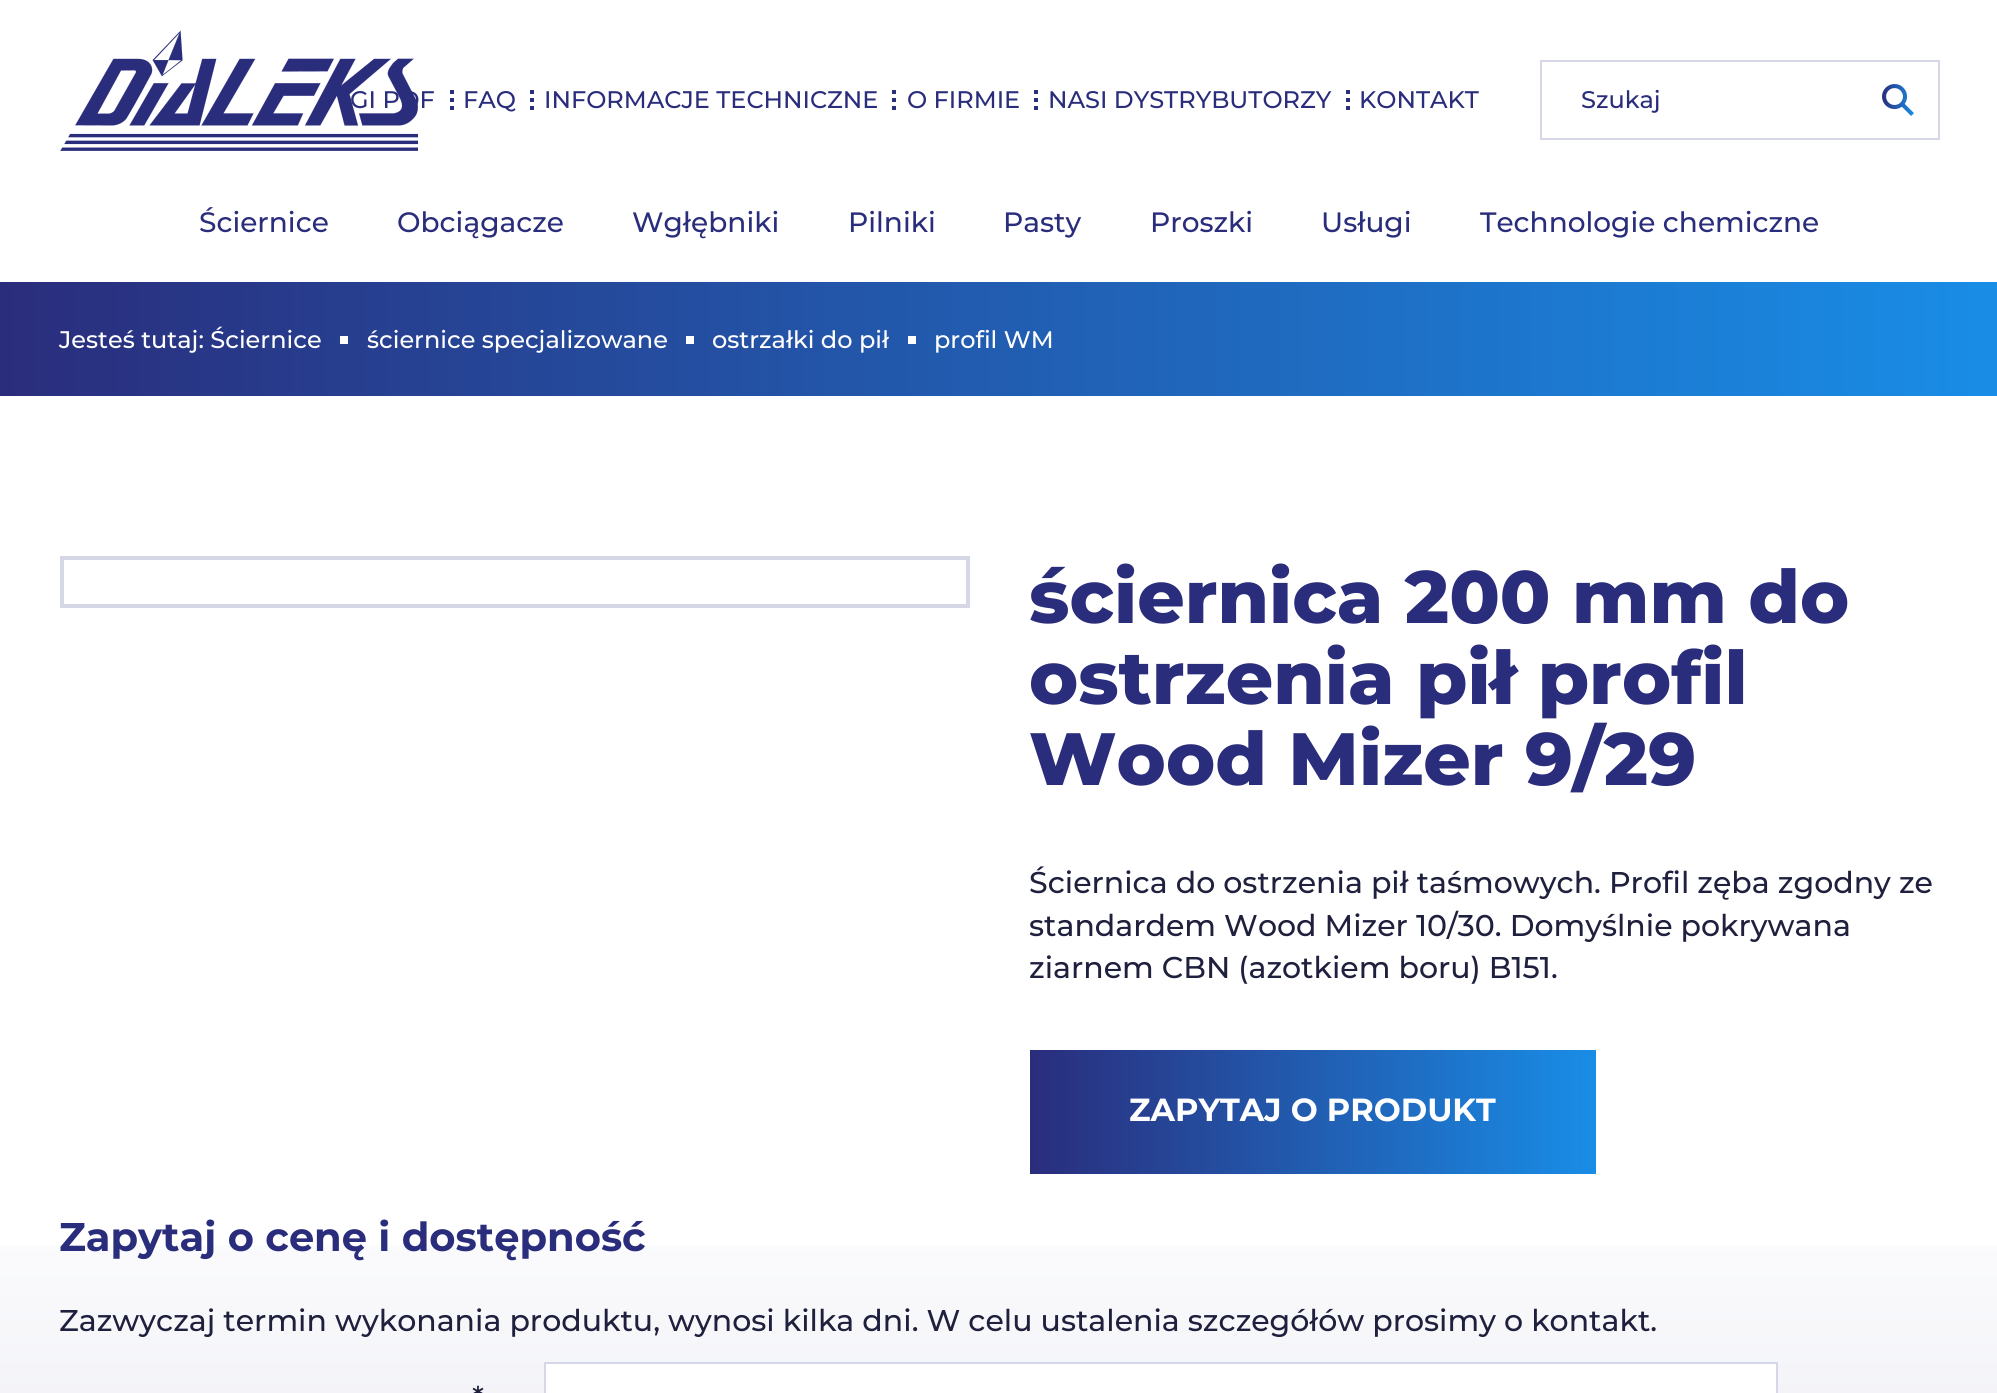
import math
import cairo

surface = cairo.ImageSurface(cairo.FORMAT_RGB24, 1997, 1393)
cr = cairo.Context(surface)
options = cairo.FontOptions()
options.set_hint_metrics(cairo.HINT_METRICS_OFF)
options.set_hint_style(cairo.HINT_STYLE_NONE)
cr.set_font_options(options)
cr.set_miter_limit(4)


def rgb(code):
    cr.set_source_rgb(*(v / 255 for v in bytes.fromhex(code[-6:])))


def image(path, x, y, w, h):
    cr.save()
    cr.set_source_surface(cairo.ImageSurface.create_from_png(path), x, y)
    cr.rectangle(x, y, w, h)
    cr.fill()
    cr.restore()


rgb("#ffffff")
cr.paint()
image("img/1.png", 60, 30, 358, 121)
cr.rectangle(1541, 61, 398, 78)
rgb("#d6d7e6")
cr.stroke()
image("img/2.png", 1882, 84, 32, 32)
for x, y, w, h, color in [
    (450, 90, 4, 4, "#2a3177"),
    (450, 98, 4, 4, "#2a3177"),
    (450, 106, 4, 4, "#2a3177"),
    (530, 90, 4, 4, "#2a3177"),
    (530, 98, 4, 4, "#2a3177"),
    (530, 106, 4, 4, "#2a3177"),
    (892, 90, 4, 4, "#2a3177"),
    (892, 98, 4, 4, "#2a3177"),
    (892, 106, 4, 4, "#2a3177"),
    (1034, 90, 4, 4, "#2a3177"),
    (1034, 98, 4, 4, "#2a3177"),
    (1034, 106, 4, 4, "#2a3177"),
    (1346, 90, 4, 4, "#2a3177"),
    (1346, 98, 4, 4, "#2a3177"),
    (1346, 106, 4, 4, "#2a3177"),
]:
    rgb(color)
    cr.rectangle(x, y, w, h)
    cr.fill()
gradient = cairo.LinearGradient(0, 339, 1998, 339)
gradient.add_color_stop_rgba(0, 0.165, 0.176, 0.486, 1)
gradient.add_color_stop_rgba(1, 0.098, 0.553, 0.902, 1)
cr.set_source(gradient)
cr.rectangle(0, 282, 1997, 114)
cr.fill()
for x, y, w, h, color in [
    (340, 336, 8, 8, "#ffffff"),
    (686, 336, 8, 8, "#ffffff"),
    (908, 336, 8, 8, "#ffffff"),
]:
    rgb(color)
    cr.rectangle(x, y, w, h)
    cr.fill()
cr.rectangle(62, 558, 906, 48)
rgb("#d6d7e6")
cr.set_line_width(4)
cr.stroke()
gradient = cairo.LinearGradient(1030, 1112, 1596, 1112)
gradient.add_color_stop_rgba(0, 0.165, 0.176, 0.486, 1)
gradient.add_color_stop_rgba(1, 0.098, 0.553, 0.902, 1)
cr.set_source(gradient)
cr.rectangle(1030, 1050, 566, 124)
cr.fill()
image("img/3.png", 0, 1245, 1997, 148)
rgb("#ffffff")
cr.rectangle(545, 1363, 1232, 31)
cr.fill_preserve()
rgb("#d6d7e6")
cr.set_line_width(2)
cr.stroke()
cr.select_font_face("Montserrat Medium")
cr.set_font_size(24)
rgb("#2a2d7b")
for x, y, s in [
    (1581, 108, "Szukaj"),
    (350, 108, "GI PDF"),
    (463, 108, "FAQ"),
    (544, 108, "INFORMACJE TECHNICZNE"),
    (907, 108, "O FIRMIE"),
    (1048, 108, "NASI DYSTRYBUTORZY"),
    (1359, 108, "KONTAKT"),
]:
    cr.move_to(x, y)
    cr.show_text(s)
cr.set_font_size(28)
for x, y, s in [
    (199, 232, "Ściernice"),
    (397, 232, "Obciągacze"),
    (632, 232, "Wgłębniki"),
    (848, 232, "Pilniki"),
    (1003, 232, "Pasty"),
    (1150, 232, "Proszki"),
    (1321, 232, "Usługi"),
    (1480, 232, "Technologie chemiczne"),
]:
    cr.move_to(x, y)
    cr.show_text(s)
cr.set_font_size(24)
rgb("#ffffff")
for x, y, s in [
    (59, 348, "Jesteś tutaj: Ściernice"),
    (367, 348, "ściernice specjalizowane"),
    (712, 348, "ostrzałki do pił"),
    (934, 348, "profil WM"),
]:
    cr.move_to(x, y)
    cr.show_text(s)
cr.select_font_face("Montserrat ExtraBold")
cr.set_font_size(74)
rgb("#2a2d7b")
for x, y, s in [
    (1029, 623, "ściernica 200 mm do"),
    (1029, 704, "ostrzenia pił profil"),
    (1029, 785, "Wood Mizer 9/29"),
]:
    cr.move_to(x, y)
    cr.show_text(s)
cr.select_font_face("Montserrat Medium")
cr.set_font_size(30)
rgb("#1f203d")
for x, y, s in [
    (1029, 893, "Ściernica do ostrzenia pił taśmowych. Profil zęba zgodny ze"),
    (1029, 936, "standardem Wood Mizer 10/30. Domyślnie pokrywana"),
    (1029, 978, "ziarnem CBN (azotkiem boru) B151."),
]:
    cr.move_to(x, y)
    cr.show_text(s)
cr.select_font_face("Montserrat", cairo.FONT_SLANT_NORMAL, cairo.FONT_WEIGHT_BOLD)
cr.set_font_size(32)
rgb("#ffffff")
cr.move_to(1129, 1121)
cr.show_text("ZAPYTAJ O PRODUKT")
cr.set_font_size(40)
rgb("#2a2d7b")
cr.move_to(59, 1251)
cr.show_text("Zapytaj o cenę i dostępność")
cr.select_font_face("Montserrat Medium")
cr.set_font_size(30)
rgb("#1f203d")
cr.move_to(59, 1331)
cr.show_text("Zazwyczaj termin wykonania produktu, wynosi kilka dni. W celu ustalenia szczegółów prosimy o kontakt.")
cr.move_to(472, 1408)
cr.show_text("*")
surface.write_to_png("page.png")
